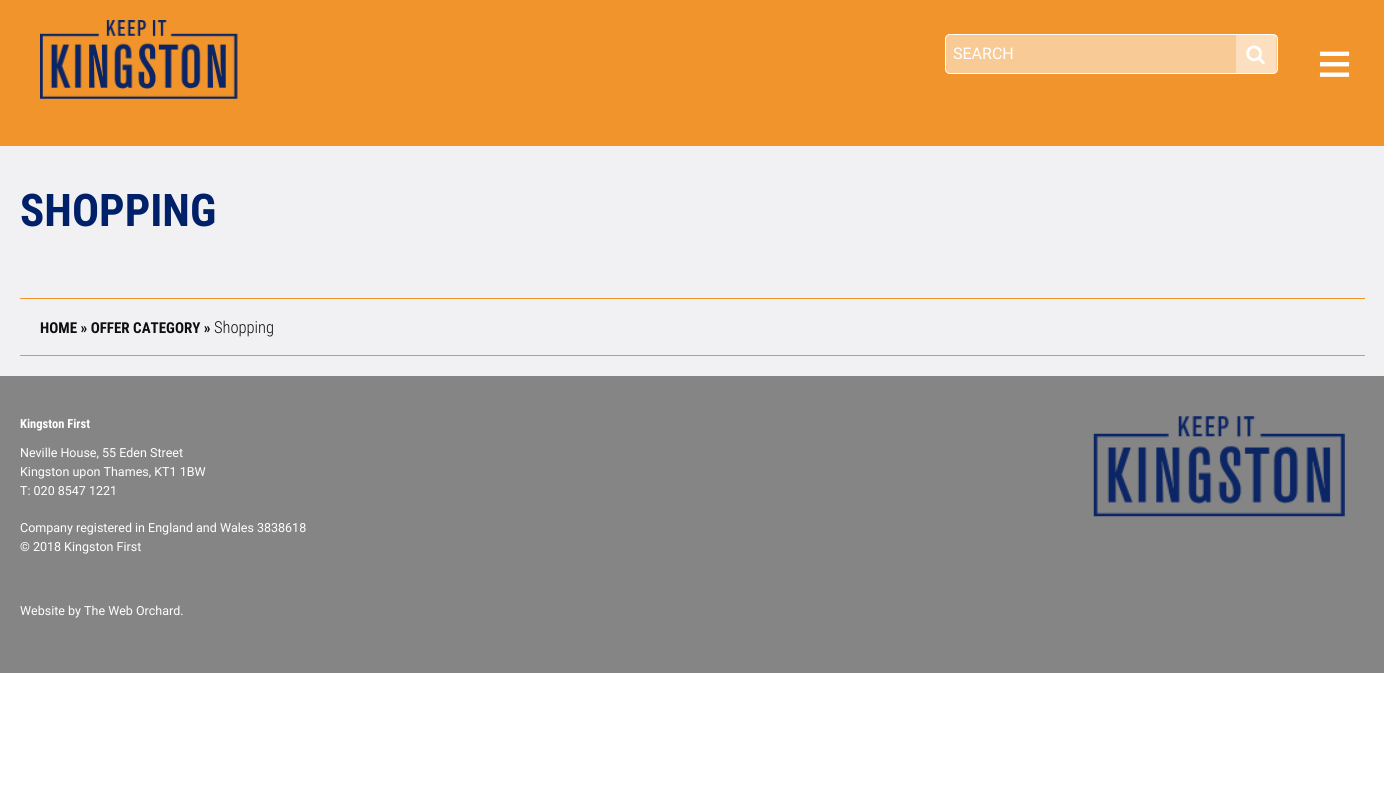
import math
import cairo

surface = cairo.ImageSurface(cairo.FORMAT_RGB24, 1384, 801)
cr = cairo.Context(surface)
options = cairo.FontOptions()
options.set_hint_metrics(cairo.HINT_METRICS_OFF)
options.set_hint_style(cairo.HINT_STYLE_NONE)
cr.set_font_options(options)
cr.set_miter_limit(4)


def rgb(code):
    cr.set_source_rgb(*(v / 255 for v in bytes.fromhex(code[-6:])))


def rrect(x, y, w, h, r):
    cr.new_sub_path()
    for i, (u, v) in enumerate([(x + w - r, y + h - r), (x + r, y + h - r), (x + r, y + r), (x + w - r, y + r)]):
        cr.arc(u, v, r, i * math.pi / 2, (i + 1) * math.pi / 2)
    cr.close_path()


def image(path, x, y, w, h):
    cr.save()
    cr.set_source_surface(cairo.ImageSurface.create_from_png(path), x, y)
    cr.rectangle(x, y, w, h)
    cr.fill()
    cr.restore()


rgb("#ffffff")
cr.paint()
rgb("#f1f1f3")
cr.rectangle(0, 146, 1384, 230)
cr.fill()
rgb("#f0942b")
cr.rectangle(0, 0, 1384, 146)
cr.fill()
image("img/1.png", 40, 20, 198, 79)
rgb("#f8ca95")
rrect(945.5, 34.5, 332, 39, 4.5)
cr.fill_preserve()
rgb("#ffffff")
cr.set_line_width(1)
cr.stroke()
image("img/2.png", 1246, 45, 19, 20)
cr.set_source_rgba(1, 1, 1, 0.4)
cr.rectangle(1236, 35, 40, 38)
cr.fill()
rgb("#f0942b")
cr.rectangle(20, 298, 1345, 1)
cr.rectangle(20, 355, 1345, 1)
cr.fill()
rgb("#858585")
cr.rectangle(0, 376, 1384, 297)
cr.fill()
image("img/3.png", 1093, 416, 252, 101)
cr.select_font_face("Roboto")
cr.set_font_size(16)
rgb("#ffffff")
cr.move_to(953, 59)
cr.show_text("SEARCH")
cr.select_font_face("Liberation Sans")
cr.set_font_size(60)
cr.move_to(1317, 84)
cr.show_text("≡")
cr.select_font_face("Roboto Condensed", cairo.FONT_SLANT_NORMAL, cairo.FONT_WEIGHT_BOLD)
cr.set_font_size(45)
rgb("#002169")
cr.move_to(20, 226)
cr.show_text("SHOPPING")
cr.set_font_size(15)
rgb("#0f0f0f")
cr.move_to(40, 333)
cr.show_text("HOME » OFFER CATEGORY »")
cr.select_font_face("Roboto Condensed Light")
cr.set_font_size(16.5)
cr.move_to(214, 333)
cr.show_text("Shopping")
cr.select_font_face("Roboto Condensed", cairo.FONT_SLANT_NORMAL, cairo.FONT_WEIGHT_BOLD)
cr.set_font_size(12.5)
rgb("#ffffff")
cr.move_to(20, 428)
cr.show_text("Kingston First")
cr.select_font_face("Roboto")
for x, y, s in [
    (20, 457, "Neville House, 55 Eden Street"),
    (20, 476, "Kingston upon Thames, KT1 1BW"),
    (20, 495, "T: 020 8547 1221"),
    (20, 532, "Company registered in England and Wales 3838618"),
    (20, 551, "© 2018 Kingston First"),
    (20, 615, "Website by The Web Orchard."),
]:
    cr.move_to(x, y)
    cr.show_text(s)
surface.write_to_png("page.png")
